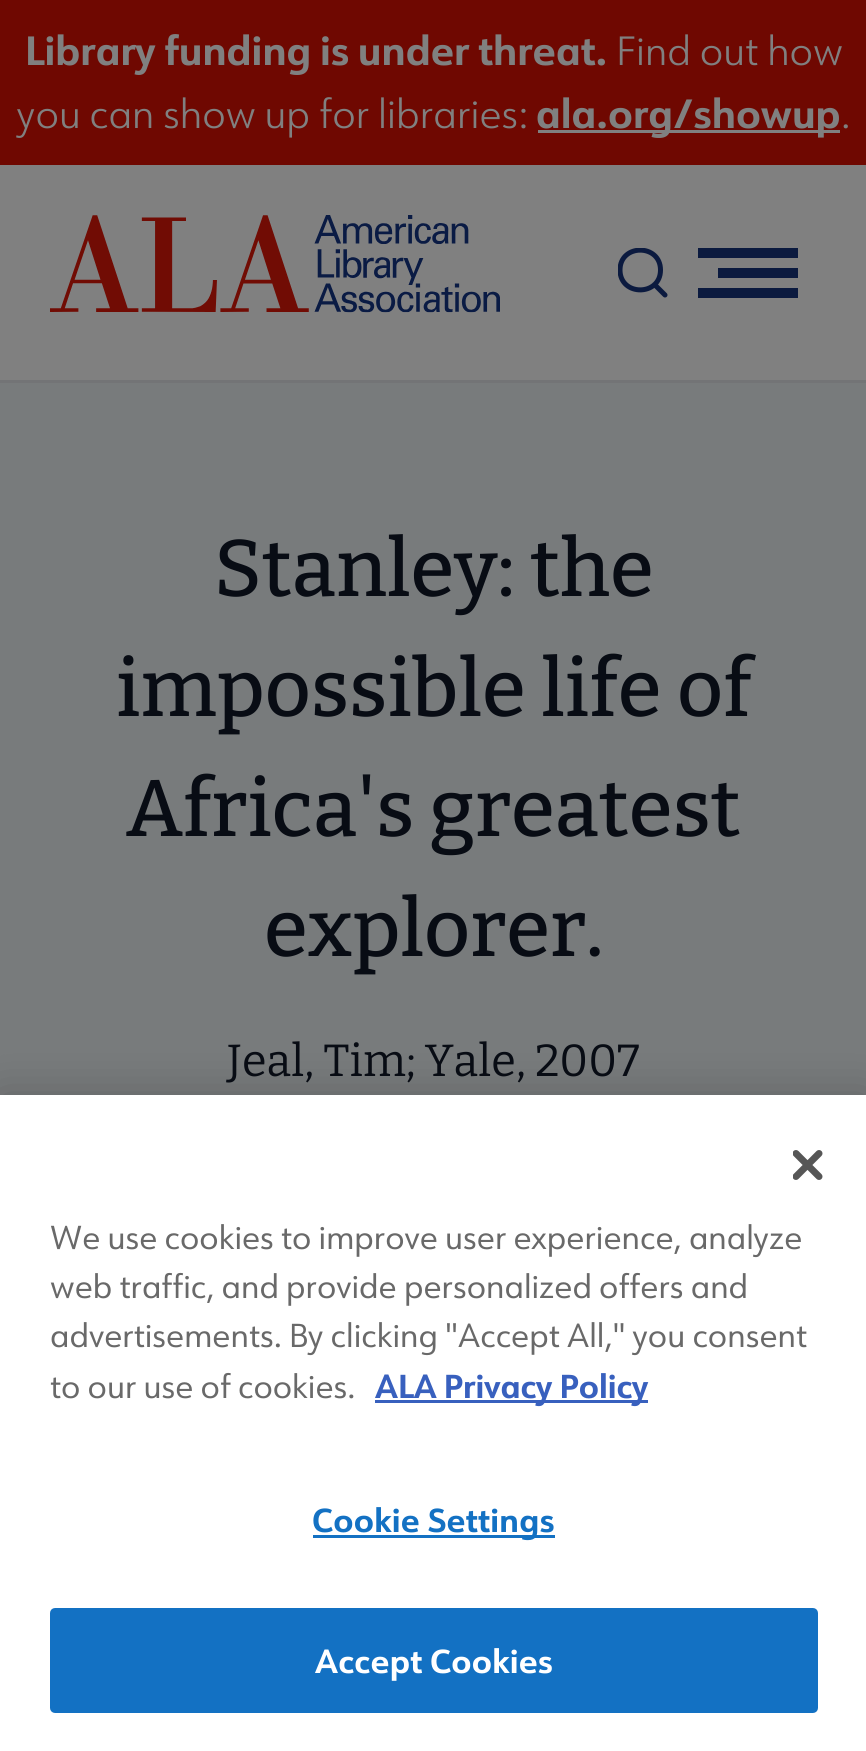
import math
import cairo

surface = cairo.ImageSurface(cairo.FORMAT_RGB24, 866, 1751)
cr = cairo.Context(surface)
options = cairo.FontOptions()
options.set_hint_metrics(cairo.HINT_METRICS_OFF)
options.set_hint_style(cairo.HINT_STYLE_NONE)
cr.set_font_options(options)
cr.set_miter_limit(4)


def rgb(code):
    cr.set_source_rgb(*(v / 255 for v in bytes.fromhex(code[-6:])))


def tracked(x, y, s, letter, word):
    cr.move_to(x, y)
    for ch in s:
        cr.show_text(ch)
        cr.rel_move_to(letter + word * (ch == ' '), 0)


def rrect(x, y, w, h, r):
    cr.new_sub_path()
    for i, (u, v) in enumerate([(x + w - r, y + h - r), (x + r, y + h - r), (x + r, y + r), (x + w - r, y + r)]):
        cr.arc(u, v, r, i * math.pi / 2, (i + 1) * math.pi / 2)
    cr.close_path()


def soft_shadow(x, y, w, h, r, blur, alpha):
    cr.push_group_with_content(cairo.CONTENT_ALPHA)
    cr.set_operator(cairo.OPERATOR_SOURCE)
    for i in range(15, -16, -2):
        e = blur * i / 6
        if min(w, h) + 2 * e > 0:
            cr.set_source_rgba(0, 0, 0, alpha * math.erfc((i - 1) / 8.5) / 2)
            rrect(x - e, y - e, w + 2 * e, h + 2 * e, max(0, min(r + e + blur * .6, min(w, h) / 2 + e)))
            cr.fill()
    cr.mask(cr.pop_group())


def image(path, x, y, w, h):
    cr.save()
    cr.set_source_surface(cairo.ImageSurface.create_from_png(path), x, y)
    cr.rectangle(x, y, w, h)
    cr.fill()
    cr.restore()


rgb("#808080")
cr.paint()
for x, y, w, h, color in [
    (0, 380, 866, 3, "#737476"),
    (0, 0, 866, 165, "#6f0801"),
    (538, 130, 302, 3, "#808080"),
]:
    rgb(color)
    cr.rectangle(x, y, w, h)
    cr.fill()
image("img/1.png", 50, 215, 450, 98)
cr.save()
cr.rectangle(618, 248, 50, 50)
cr.clip()
cr.new_path()
cr.move_to(665, 295)
cr.line_to(654.5, 284.5)
cr.move_to(660.5, 270)
cr.curve_to(660.5, 296.5, 620, 296.5, 620, 270)
cr.curve_to(620, 243.5, 660.5, 243.5, 660.5, 270)
cr.close_path()
rgb("#0b1a3f")
cr.set_line_width(5)
cr.set_line_cap(cairo.LINE_CAP_ROUND)
cr.stroke()
cr.restore()
for x, y, w, h, color in [
    (698, 248, 100, 10, "#0b1a3f"),
    (718, 268, 80, 10, "#0b1a3f"),
    (698, 288, 100, 10, "#0b1a3f"),
    (0, 383, 866, 712, "#787b7c"),
]:
    rgb(color)
    cr.rectangle(x, y, w, h)
    cr.fill()
rgb("#000000")
soft_shadow(0, 1095, 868, 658, 0, 22.5, 0.2)
rgb("#ffffff")
cr.rectangle(0, 1095, 866, 656)
cr.fill()
image("img/2.png", 793, 1150, 30, 30)
rgb("#3860be")
cr.rectangle(375, 1400, 273, 3)
cr.fill()
rgb("#1371c3")
cr.rectangle(313, 1535, 242, 3)
cr.fill()
rrect(51.5, 1609.5, 765, 102, 3.5)
cr.fill_preserve()
cr.set_line_width(3)
cr.stroke()
cr.select_font_face("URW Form", cairo.FONT_SLANT_NORMAL, cairo.FONT_WEIGHT_BOLD)
cr.set_font_size(40)
rgb("#808080")
cr.move_to(25, 65)
cr.show_text("Library funding is under threat.")
cr.select_font_face("URW Form Light")
cr.move_to(616, 65)
cr.show_text("Find out how")
cr.move_to(17, 128)
cr.show_text("you can show up for libraries:")
cr.select_font_face("URW Form", cairo.FONT_SLANT_NORMAL, cairo.FONT_WEIGHT_BOLD)
cr.move_to(536, 128)
cr.show_text("ala.org/showup")
cr.select_font_face("URW Form Light")
cr.move_to(841, 128)
cr.show_text(".")
cr.select_font_face("Bitter Medium")
cr.set_font_size(80)
rgb("#080c14")
for x, y, s in [
    (214, 596, "Stanley: the"),
    (116, 716, "impossible life of"),
    (126, 836, "Africa's greatest"),
    (264, 956, "explorer."),
]:
    cr.move_to(x, y)
    cr.show_text(s)
cr.select_font_face("Bitter")
cr.set_font_size(45)
cr.move_to(227, 1076)
cr.show_text("Jeal, Tim; Yale, 2007")
cr.select_font_face("URW Form")
cr.set_font_size(32.5)
rgb("#696969")
for x, y, s in [
    (50, 1249, "We use cookies to improve user experience, analyze"),
    (50, 1298, "web traffic, and provide personalized offers and"),
    (50, 1347, "advertisements. By clicking \"Accept All,\" you consent"),
    (50, 1398, "to our use of cookies."),
]:
    cr.move_to(x, y)
    cr.show_text(s)
cr.select_font_face("URW Form", cairo.FONT_SLANT_NORMAL, cairo.FONT_WEIGHT_BOLD)
rgb("#3860be")
cr.move_to(375, 1398)
cr.show_text("ALA Privacy Policy")
rgb("#1371c3")
tracked(312, 1532, "Cookie Settings", 0.3, 0)
rgb("#ffffff")
tracked(315, 1673, "Accept Cookies", 0.3, 0)
surface.write_to_png("page.png")
